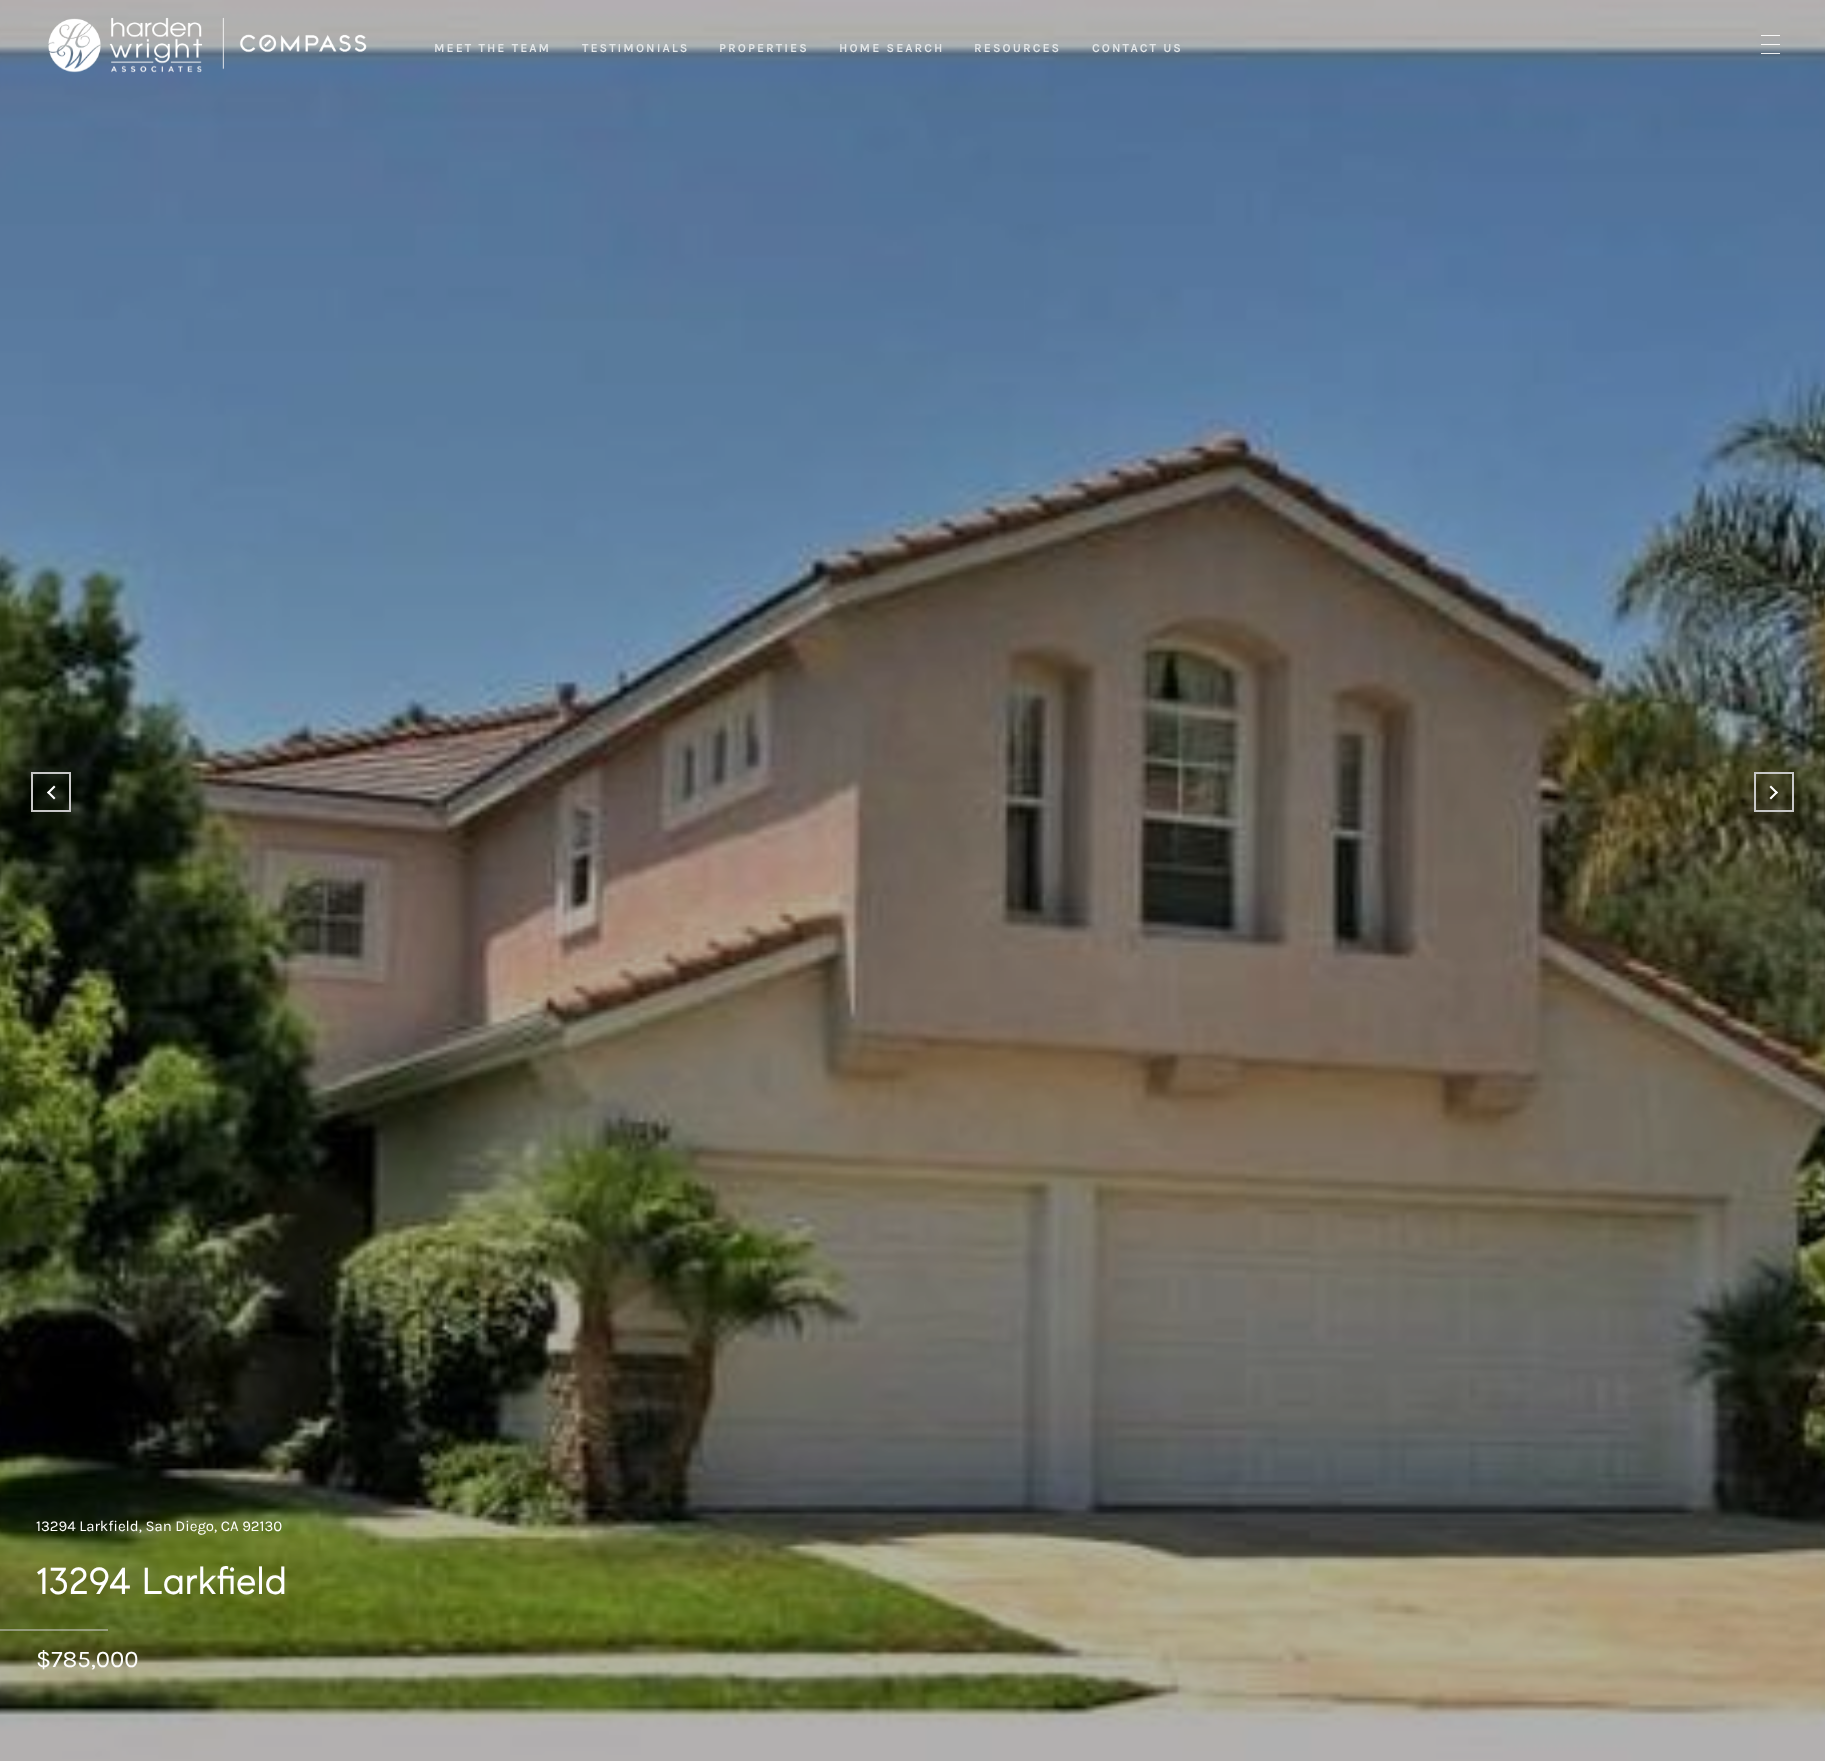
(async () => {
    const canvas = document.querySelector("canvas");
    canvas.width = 1825;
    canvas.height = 1761;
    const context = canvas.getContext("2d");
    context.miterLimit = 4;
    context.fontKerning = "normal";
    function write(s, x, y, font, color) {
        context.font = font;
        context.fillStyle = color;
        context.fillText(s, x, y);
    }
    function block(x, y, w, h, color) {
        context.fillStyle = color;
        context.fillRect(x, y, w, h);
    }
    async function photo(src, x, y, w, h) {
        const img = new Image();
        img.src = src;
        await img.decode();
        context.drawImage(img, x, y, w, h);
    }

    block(0, 0, 1825, 1761, "rgb(255, 255, 255)");
    await photo("media/2.png", 0, 0, 1825, 1761);
    await photo("media/1.png", 48, 17, 319, 56);
    context.letterSpacing = "2.4px";
    write("MEET THE TEAM", 434, 52, "bold 12px Karla", "rgb(228, 231, 233)");
    write("TESTIMONIALS", 582, 52, "bold 12px Karla", "rgb(228, 231, 233)");
    write("PROPERTIES", 719, 52, "bold 12px Karla", "rgb(228, 231, 233)");
    write("HOME SEARCH", 839, 52, "bold 12px Karla", "rgb(228, 231, 233)");
    write("RESOURCES", 974, 52, "bold 12px Karla", "rgb(228, 231, 233)");
    write("CONTACT US", 1092, 52, "bold 12px Karla", "rgb(228, 231, 233)");
    block(1761, 35, 19, 1, "rgb(247, 247, 247)");
    block(1761, 44, 19, 1, "rgb(247, 247, 247)");
    block(1761, 53, 19, 1, "rgb(238, 240, 242)");
    context.strokeStyle = "rgb(200, 200, 200)";
    context.lineWidth = 2;
    context.strokeRect(32, 773, 38, 38);
    context.fillStyle = "rgb(255, 255, 255)";
    context.beginPath();
    context.moveTo(55.5, 798);
    context.lineTo(54, 799.5);
    context.lineTo(47, 792.5);
    context.lineTo(48.5, 791);
    context.closePath();
    context.fill();
    context.beginPath();
    context.moveTo(55.5, 787);
    context.lineTo(48.5, 794);
    context.lineTo(47, 792.5);
    context.lineTo(54, 785.5);
    context.closePath();
    context.fill();
    context.strokeRect(1755, 773, 38, 38);
    context.beginPath();
    context.moveTo(1769.5, 787);
    context.lineTo(1771, 785.5);
    context.lineTo(1778, 792.5);
    context.lineTo(1776.5, 794);
    context.closePath();
    context.fill();
    context.beginPath();
    context.moveTo(1769.5, 798);
    context.lineTo(1776.5, 791);
    context.lineTo(1778, 792.5);
    context.lineTo(1771, 799.5);
    context.closePath();
    context.fill();
    context.letterSpacing = "0px";
    write("13294 Larkfield, San Diego, CA 92130", 36, 1531, "15px Karla", "rgb(255, 255, 255)");
    write("13294 Larkfield", 36, 1594, "37.5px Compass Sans", "rgb(255, 255, 255)");
    block(0, 1629, 108, 2, "rgba(200, 200, 200, 0.55)");
    write("$785,000", 36, 1667, "24px Karla", "rgb(255, 255, 255)");
})();
